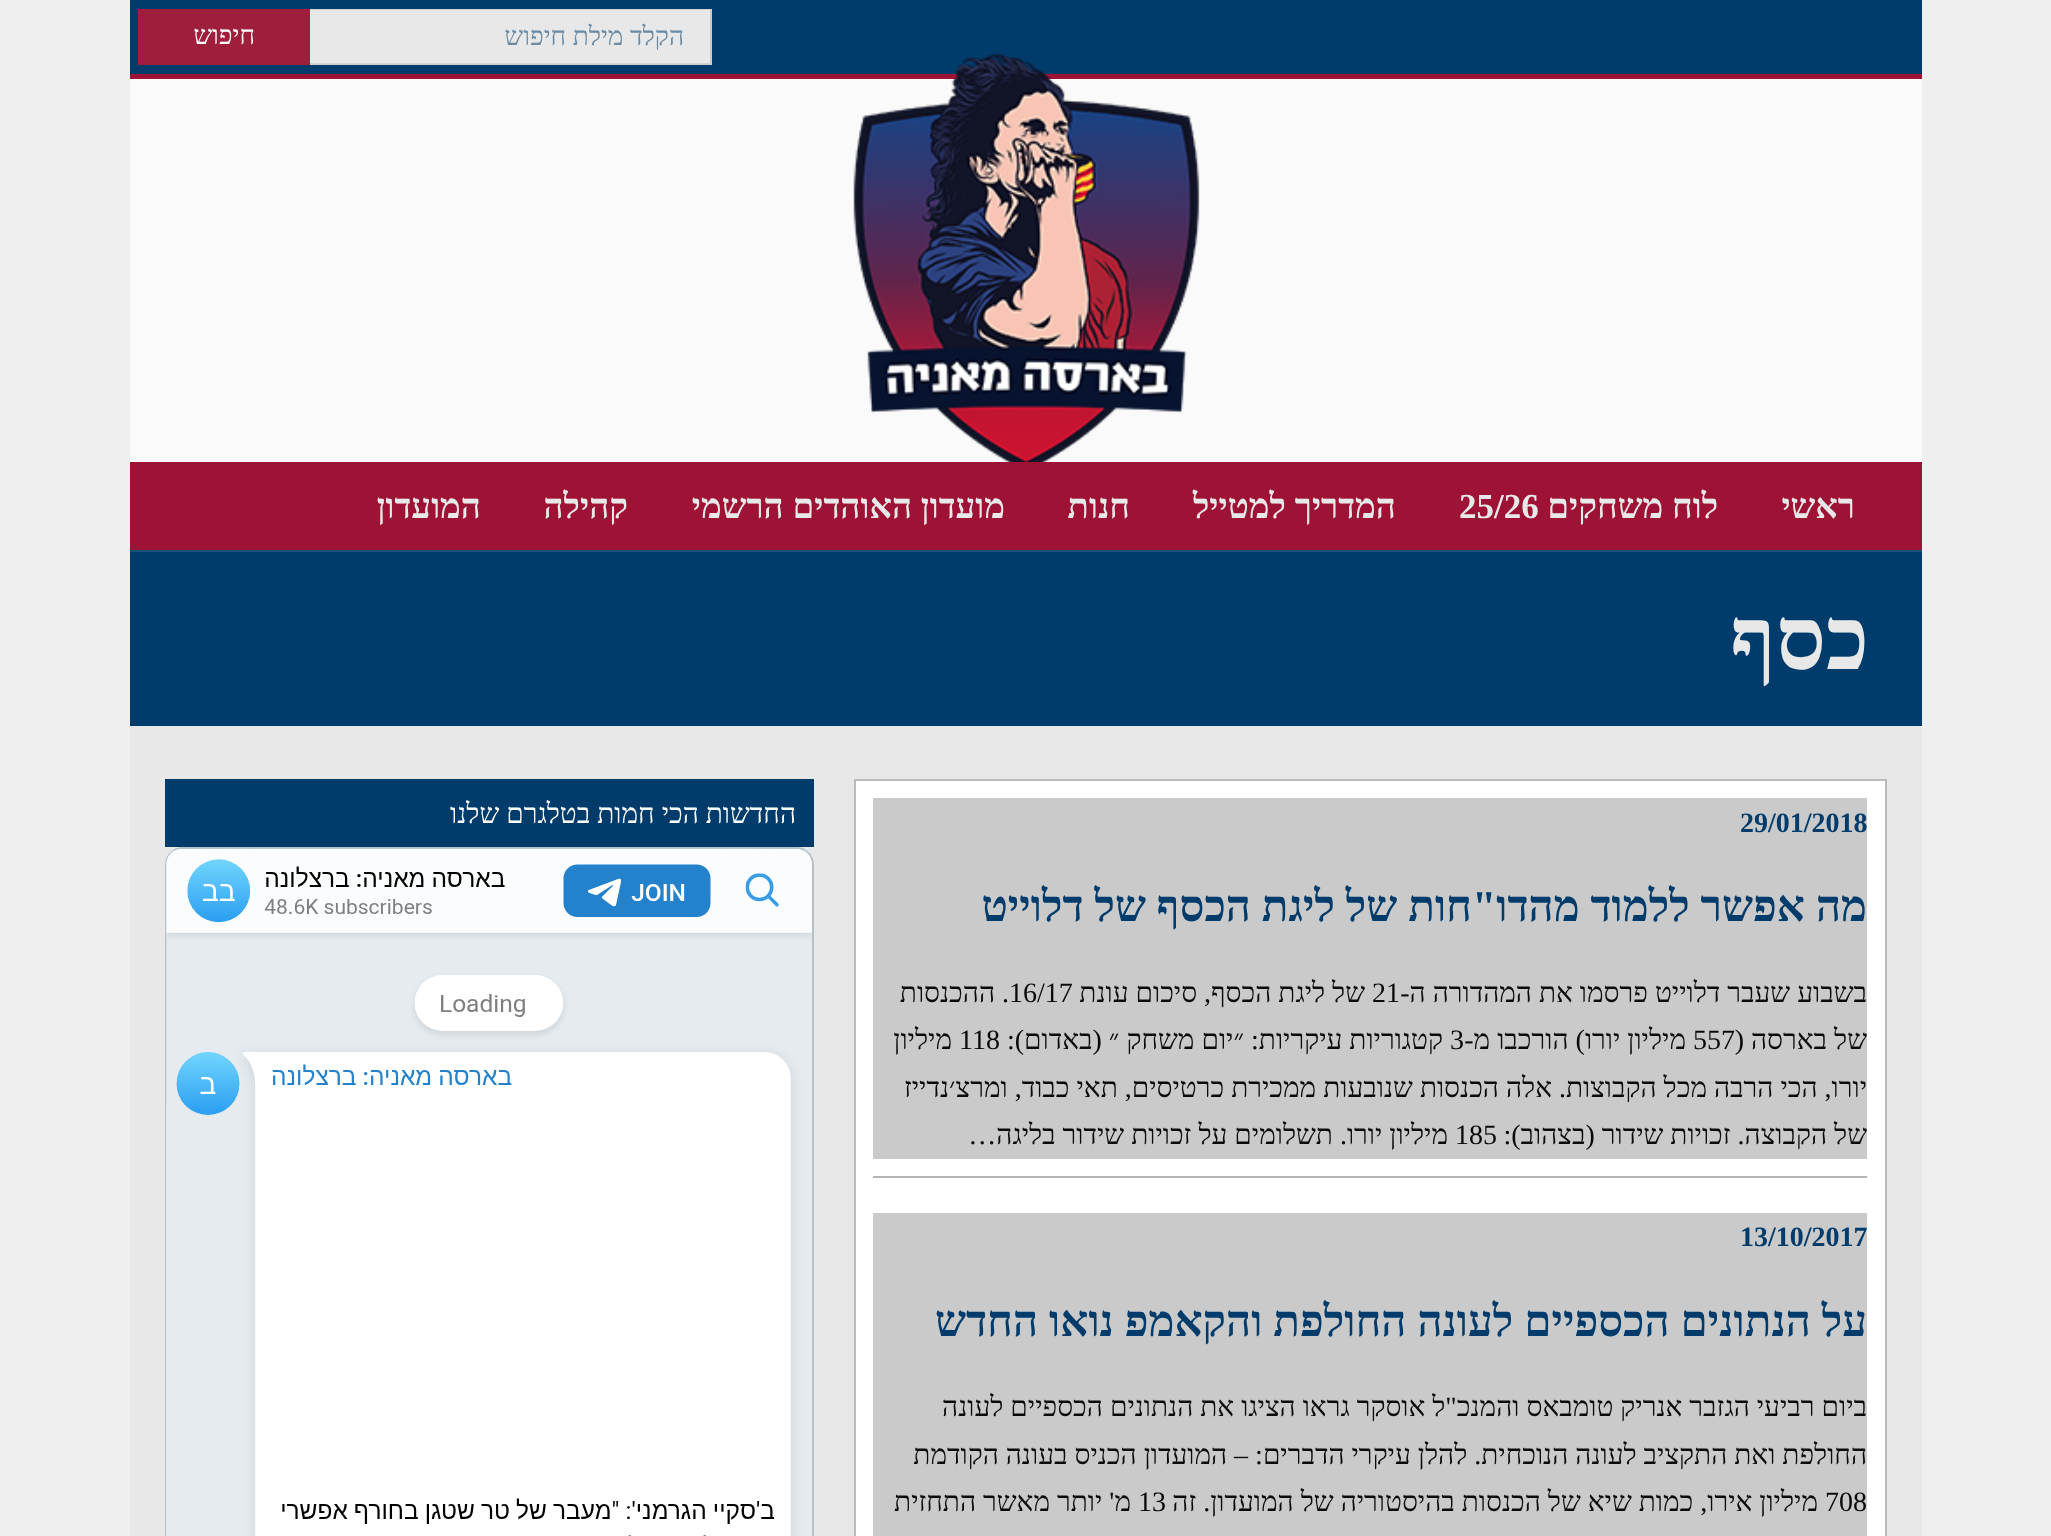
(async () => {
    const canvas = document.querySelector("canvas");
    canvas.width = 2051;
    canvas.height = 1536;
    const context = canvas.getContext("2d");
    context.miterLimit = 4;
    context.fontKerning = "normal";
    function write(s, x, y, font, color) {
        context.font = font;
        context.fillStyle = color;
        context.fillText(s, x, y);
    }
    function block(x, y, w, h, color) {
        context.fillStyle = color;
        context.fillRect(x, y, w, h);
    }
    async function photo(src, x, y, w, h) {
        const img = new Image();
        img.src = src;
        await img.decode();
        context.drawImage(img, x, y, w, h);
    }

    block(0, 0, 2051, 1536, "rgb(239, 239, 239)");
    block(130, 0, 1792, 74, "rgb(0, 60, 107)");
    block(130, 74, 1792, 5, "rgb(158, 19, 53)");
    block(310, 9, 402, 56, "rgb(232, 232, 232)");
    context.fillStyle = "rgb(209, 209, 209)";
    context.beginPath();
    context.moveTo(310, 9);
    context.lineTo(712, 9);
    context.lineTo(710, 10);
    context.lineTo(310, 10);
    context.closePath();
    context.fill();
    context.fillStyle = "rgb(202, 202, 202)";
    context.beginPath();
    context.moveTo(712, 9);
    context.lineTo(712, 65);
    context.lineTo(710, 63);
    context.lineTo(710, 10);
    context.closePath();
    context.fill();
    context.fillStyle = "rgba(0, 0, 0, 0.1)";
    context.beginPath();
    context.moveTo(712, 65);
    context.lineTo(310, 65);
    context.lineTo(310, 63);
    context.lineTo(710, 63);
    context.closePath();
    context.fill();
    context.direction = "rtl";
    write("הקלד מילת חיפוש", 684, 45, "26.25px Liberation Serif", "rgb(107, 139, 165)");
    block(138, 9, 172, 56, "rgb(158, 30, 60)");
    write("חיפוש", 255, 44, "26.25px Liberation Serif", "rgb(255, 255, 255)");
    block(130, 79, 1792, 383, "rgb(250, 250, 250)");
    await photo("media/1.png", 853, 54, 347, 408);
    block(130, 462, 1792, 88, "rgb(158, 19, 53)");
    write("ראשי", 1855, 518, "bold 35px Liberation Serif", "rgb(232, 232, 232)");
    write("לוח משחקים", 1718, 518, "bold 35px Liberation Serif", "rgb(232, 232, 232)");
    context.direction = "ltr";
    write("25/26", 1459, 518, "bold 35px Liberation Serif", "rgb(232, 232, 232)");
    context.direction = "rtl";
    write("המדריך למטייל", 1396, 518, "bold 35px Liberation Serif", "rgb(232, 232, 232)");
    write("חנות", 1130, 518, "bold 35px Liberation Serif", "rgb(232, 232, 232)");
    write("מועדון האוהדים הרשמי", 1005, 518, "bold 35px Liberation Serif", "rgb(232, 232, 232)");
    write("קהילה", 628, 518, "bold 35px Liberation Serif", "rgb(232, 232, 232)");
    write("המועדון", 481, 518, "bold 35px Liberation Serif", "rgb(232, 232, 232)");
    block(130, 552, 1792, 174, "rgb(0, 60, 107)");
    block(130, 550, 1792, 2, "rgb(26, 80, 122)");
    write("כסף", 1869, 669, "bold 88px Liberation Serif", "rgb(232, 232, 232)");
    block(130, 726, 1792, 810, "rgb(232, 232, 232)");
    context.fillStyle = "rgb(255, 255, 255)";
    context.beginPath();
    context.rect(855, 780, 1031, 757);
    context.fill();
    context.strokeStyle = "rgb(187, 187, 187)";
    context.lineWidth = 2;
    context.stroke();
    block(873, 1176, 994, 2, "rgb(180, 180, 180)");
    block(873, 798, 994, 361, "rgb(202, 202, 202)");
    context.direction = "ltr";
    write("29/01/2018", 1740, 832, "bold 28px Liberation Serif", "rgb(0, 60, 107)");
    context.direction = "rtl";
    write("מה אפשר ללמוד מהדו\"חות של ליגת הכסף של דלוייט", 1867, 921, "bold 43.75px Liberation Serif", "rgb(0, 60, 107)");
    write("בשבוע שעבר דלוייט פרסמו את המהדורה ה-", 1867, 1002, "28px Liberation Serif", "rgb(10, 10, 10)");
    context.direction = "ltr";
    write("21", 1372, 1002, "28px Liberation Serif", "rgb(10, 10, 10)");
    context.direction = "rtl";
    write("של ליגת הכסף, סיכום עונת", 1365, 1002, "28px Liberation Serif", "rgb(10, 10, 10)");
    context.direction = "ltr";
    write("16/17", 1009, 1002, "28px Liberation Serif", "rgb(10, 10, 10)");
    context.direction = "rtl";
    write(". ההכנסות", 1009, 1002, "28px Liberation Serif", "rgb(10, 10, 10)");
    write("של בארסה (", 1867, 1049, "28px Liberation Serif", "rgb(10, 10, 10)");
    context.direction = "ltr";
    write("557", 1693, 1049, "28px Liberation Serif", "rgb(10, 10, 10)");
    context.direction = "rtl";
    write("מיליון יורו) הורכבו מ-", 1686, 1049, "28px Liberation Serif", "rgb(10, 10, 10)");
    context.direction = "ltr";
    write("3", 1450, 1049, "28px Liberation Serif", "rgb(10, 10, 10)");
    context.direction = "rtl";
    write("קטגוריות עיקריות: ״יום משחק ״ (באדום):", 1443, 1049, "28px Liberation Serif", "rgb(10, 10, 10)");
    context.direction = "ltr";
    write("118", 959, 1049, "28px Liberation Serif", "rgb(10, 10, 10)");
    context.direction = "rtl";
    write("מיליון", 952, 1049, "28px Liberation Serif", "rgb(10, 10, 10)");
    write("יורו, הכי הרבה מכל הקבוצות. אלה הכנסות שנובעות ממכירת כרטיסים, תאי כבוד, ומרצ׳נדייז", 1867, 1097, "28px Liberation Serif", "rgb(10, 10, 10)");
    write("של הקבוצה. זכויות שידור (בצהוב):", 1867, 1144, "28px Liberation Serif", "rgb(10, 10, 10)");
    context.direction = "ltr";
    write("185", 1455, 1144, "28px Liberation Serif", "rgb(10, 10, 10)");
    context.direction = "rtl";
    write("מיליון יורו. תשלומים על זכויות שידור בליגה…", 1448, 1144, "28px Liberation Serif", "rgb(10, 10, 10)");
    block(873, 1213, 994, 323, "rgb(202, 202, 202)");
    context.direction = "ltr";
    write("13/10/2017", 1740, 1246, "bold 28px Liberation Serif", "rgb(0, 60, 107)");
    context.direction = "rtl";
    write("על הנתונים הכספיים לעונה החולפת והקאמפ נואו החדש", 1867, 1336, "bold 43.75px Liberation Serif", "rgb(0, 60, 107)");
    write("ביום רביעי הגזבר אנריק טומבאס והמנכ\"ל אוסקר גראו הציגו את הנתונים הכספיים לעונה", 1867, 1416, "28px Liberation Serif", "rgb(10, 10, 10)");
    write("החולפת ואת התקציב לעונה הנוכחית. להלן עיקרי הדברים: – המועדון הכניס בעונה הקודמת", 1867, 1464, "28px Liberation Serif", "rgb(10, 10, 10)");
    context.direction = "ltr";
    write("708", 1825, 1511, "28px Liberation Serif", "rgb(10, 10, 10)");
    context.direction = "rtl";
    write("מיליון אירו, כמות שיא של הכנסות בהיסטוריה של המועדון. זה", 1818, 1511, "28px Liberation Serif", "rgb(10, 10, 10)");
    context.direction = "ltr";
    write("13", 1138, 1511, "28px Liberation Serif", "rgb(10, 10, 10)");
    context.direction = "rtl";
    write("מ' יותר מאשר התחזית", 1131, 1511, "28px Liberation Serif", "rgb(10, 10, 10)");
    block(165, 779, 649, 68, "rgb(0, 60, 107)");
    write("החדשות הכי חמות בטלגרם שלנו", 796, 823, "28px Liberation Serif", "rgb(255, 255, 255)");
    context.beginPath();
    context.roundRect(166, 848, 647, 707, 17);
    context.strokeStyle = "rgb(181, 192, 200)";
    context.stroke();
    await photo("media/2.png", 166, 848, 646, 688);
})();
